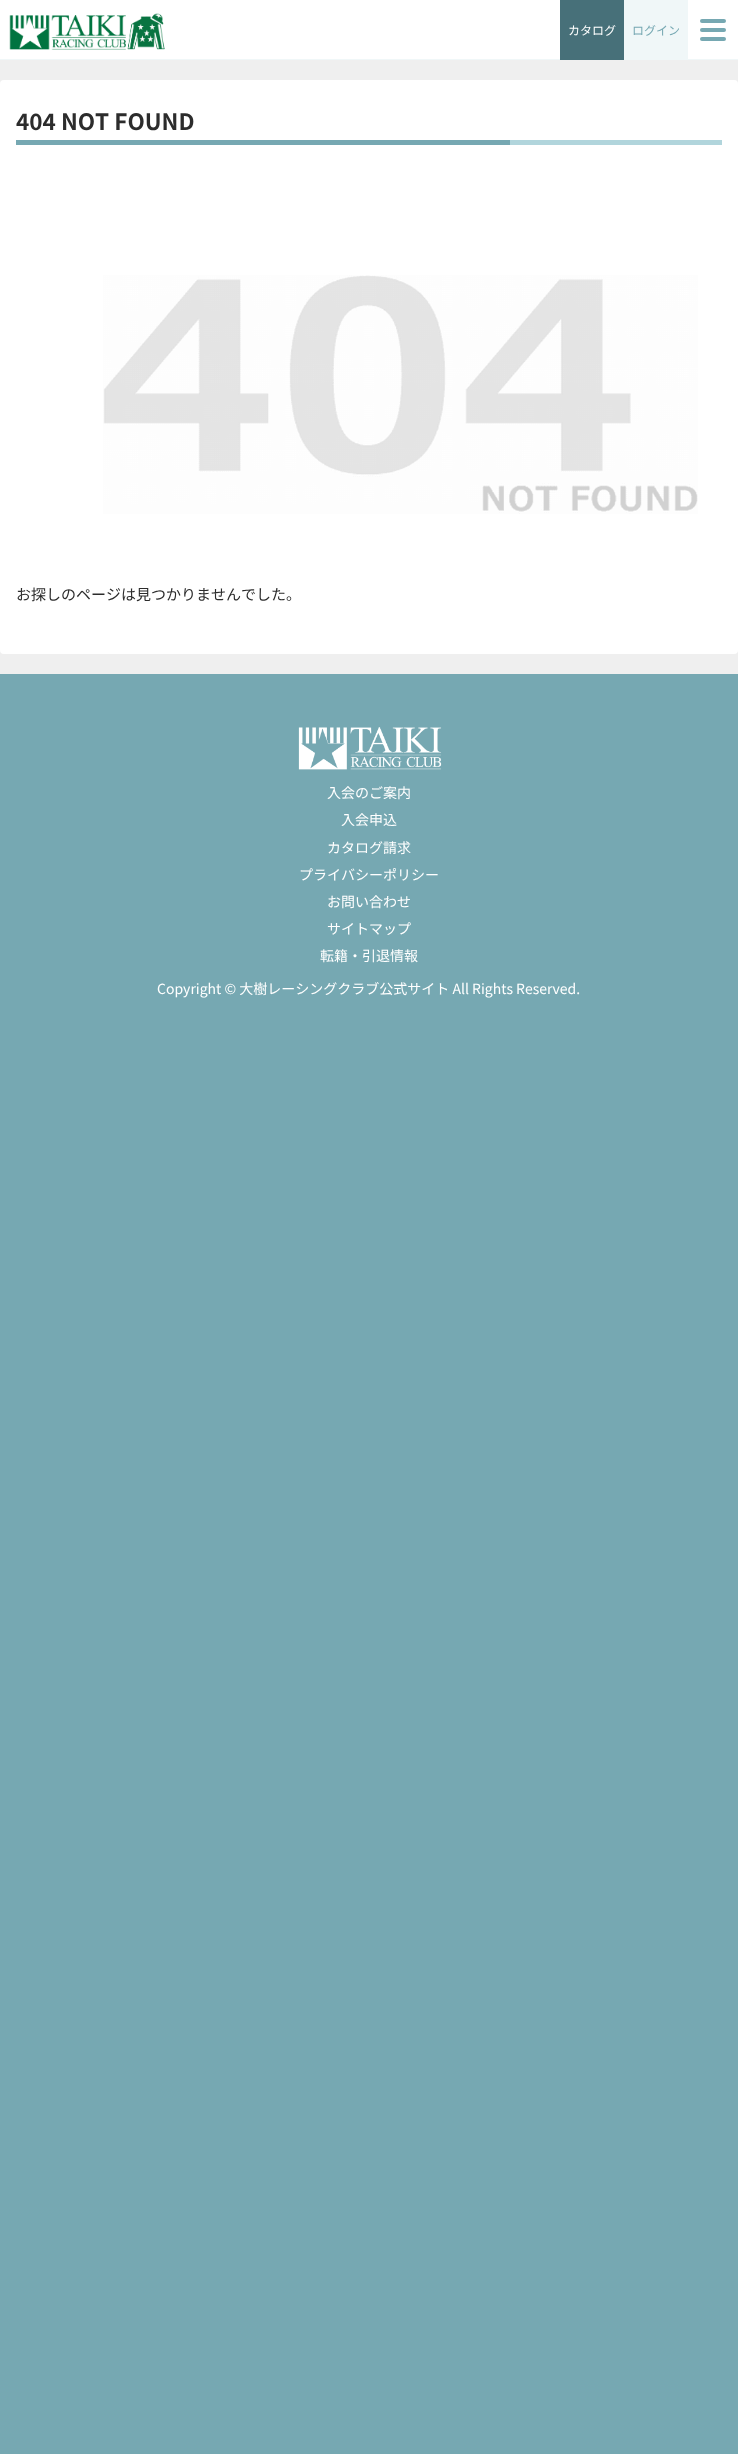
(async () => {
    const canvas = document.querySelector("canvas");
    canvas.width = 738;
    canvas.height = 2454;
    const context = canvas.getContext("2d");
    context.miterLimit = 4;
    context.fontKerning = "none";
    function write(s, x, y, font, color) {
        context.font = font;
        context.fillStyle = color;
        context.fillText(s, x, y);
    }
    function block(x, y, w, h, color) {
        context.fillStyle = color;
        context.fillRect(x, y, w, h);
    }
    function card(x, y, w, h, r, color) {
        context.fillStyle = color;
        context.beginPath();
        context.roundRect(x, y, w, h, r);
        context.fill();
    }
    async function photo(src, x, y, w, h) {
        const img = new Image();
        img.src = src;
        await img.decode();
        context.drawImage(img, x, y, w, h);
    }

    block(0, 0, 738, 2454, "rgb(118, 168, 178)");
    block(0, 0, 738, 59, "rgb(255, 255, 255)");
    block(0, 59, 738, 1, "rgb(240, 247, 248)");
    await photo("media/1.png", 9, 13, 156, 37);
    block(560, 0, 64, 60, "rgb(71, 112, 121)");
    write("カタログ", 568, 35, "12px Noto Sans JP", "rgb(255, 255, 255)");
    block(624, 0, 64, 59, "rgb(240, 247, 248)");
    write("ログイン", 632, 35, "12px Noto Sans JP", "rgb(118, 168, 178)");
    card(700, 19, 26, 4, 2, "rgb(118, 168, 178)");
    card(700, 28, 26, 4, 2, "rgb(118, 168, 178)");
    card(700, 37, 26, 4, 2, "rgb(118, 168, 178)");
    block(0, 60, 738, 614, "rgb(239, 239, 239)");
    card(0, 80, 738, 574, 4, "rgb(255, 255, 255)");
    block(510, 140, 212, 5, "rgb(177, 213, 220)");
    write("404 NOT FOUND", 16, 130, "bold 22.5px Noto Sans JP", "rgb(44, 44, 44)");
    block(16, 140, 494, 5, "rgb(118, 168, 178)");
    await photo("media/2.png", 103, 275, 595, 239);
    write("お探しのページは見つかりませんでした。", 16, 600, "15px Noto Sans JP", "rgb(44, 44, 44)");
    await photo("media/3.png", 298, 727, 144, 43);
    write("入会のご案内", 327, 798, "14px Noto Sans JP", "rgb(255, 255, 255)");
    write("入会申込", 341, 825, "14px Noto Sans JP", "rgb(255, 255, 255)");
    write("カタログ請求", 327, 853, "14px Noto Sans JP", "rgb(255, 255, 255)");
    write("プライバシーポリシー", 299, 880, "14px Noto Sans JP", "rgb(255, 255, 255)");
    write("お問い合わせ", 327, 907, "14px Noto Sans JP", "rgb(255, 255, 255)");
    write("サイトマップ", 327, 934, "14px Noto Sans JP", "rgb(255, 255, 255)");
    write("転籍・引退情報", 320, 961, "14px Noto Sans JP", "rgb(255, 255, 255)");
    write("Copyright © 大樹レーシングクラブ公式サイト All Rights Reserved.", 157, 994, "14px Noto Sans JP", "rgb(255, 255, 255)");
})();
